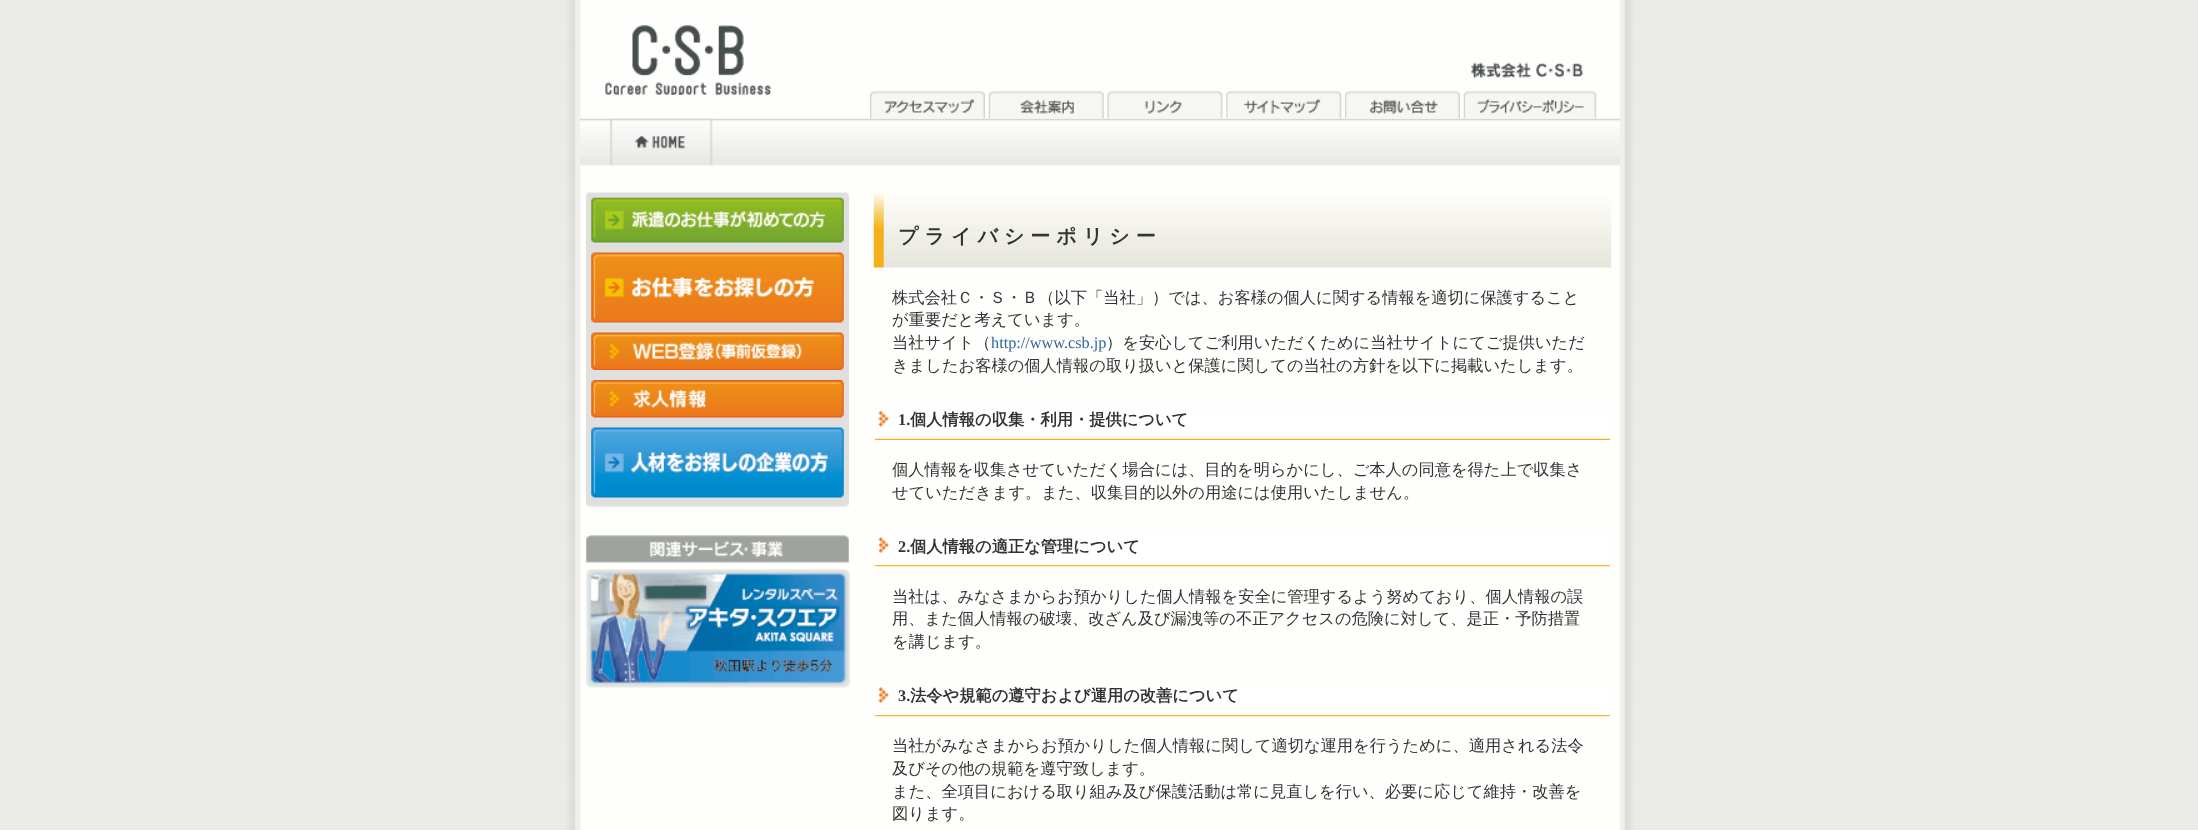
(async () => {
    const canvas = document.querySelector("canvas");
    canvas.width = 2198;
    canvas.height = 830;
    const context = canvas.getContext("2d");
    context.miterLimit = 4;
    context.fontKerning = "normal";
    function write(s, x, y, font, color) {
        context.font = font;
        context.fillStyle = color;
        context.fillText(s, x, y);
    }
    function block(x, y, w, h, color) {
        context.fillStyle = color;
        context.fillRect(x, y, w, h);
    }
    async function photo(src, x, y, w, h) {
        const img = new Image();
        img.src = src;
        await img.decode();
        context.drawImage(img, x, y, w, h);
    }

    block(0, 0, 2198, 830, "rgb(255, 255, 255)");
    await photo("media/1.png", 0, 0, 2198, 830);
    await photo("media/2.png", 567, 0, 1066, 830);
    await photo("media/3.png", 605, 25, 167, 70);
    await photo("media/4.png", 1471, 62, 112, 16);
    await photo("media/11.png", 580, 118, 1040, 48);
    await photo("media/5.png", 870, 91, 115, 28);
    await photo("media/6.png", 988, 91, 116, 28);
    await photo("media/7.png", 1107, 91, 116, 28);
    await photo("media/8.png", 1226, 91, 116, 28);
    await photo("media/9.png", 1345, 91, 115, 28);
    await photo("media/10.png", 1463, 91, 134, 28);
    await photo("media/12.png", 610, 118, 103, 48);
    await photo("media/13.png", 586, 503, 263, 5);
    await photo("media/14.png", 586, 192, 263, 5);
    block(586, 197, 263, 306, "rgb(223, 224, 221)");
    await photo("media/15.png", 591, 197, 253, 46);
    await photo("media/16.png", 591, 252, 253, 71);
    await photo("media/17.png", 591, 332, 253, 38);
    await photo("media/18.png", 591, 380, 253, 38);
    await photo("media/19.png", 591, 427, 253, 71);
    await photo("media/20.png", 586, 535, 263, 28);
    await photo("media/21.png", 586, 569, 264, 119);
    await photo("media/22.png", 873, 193, 739, 75);
    context.letterSpacing = "6px";
    write("プライバシーポリシー", 898, 243, "bold 20px WenQuanYi Zen Hei", "rgb(51, 51, 51)");
    context.letterSpacing = "0px";
    write("株式会社Ｃ・Ｓ・Ｂ（以下「当社」）では、お客様の個人に関する情報を適切に保護すること", 892, 303, "500 16.25px WenQuanYi Zen Hei", "rgb(51, 51, 51)");
    write("が重要だと考えています。", 892, 325, "500 16.25px WenQuanYi Zen Hei", "rgb(51, 51, 51)");
    write("当社サイト（", 892, 348, "500 16.25px WenQuanYi Zen Hei", "rgb(51, 51, 51)");
    write("http://www.csb.jp", 991, 348, "16.25px Liberation Serif", "rgb(51, 102, 153)");
    write("）を安心してご利用いただくために当社サイトにてご提供いただ", 1106, 348, "500 16.25px WenQuanYi Zen Hei", "rgb(51, 51, 51)");
    write("きましたお客様の個人情報の取り扱いと保護に関しての当社の方針を以下に掲載いたします。", 892, 371, "500 16.25px WenQuanYi Zen Hei", "rgb(51, 51, 51)");
    await photo("media/23.png", 874, 411, 737, 29);
    write("1.", 898, 425, "bold 16.25px Liberation Serif", "rgb(51, 51, 51)");
    write("個人情報の収集・利用・提供について", 910, 425, "bold 16.25px WenQuanYi Zen Hei", "rgb(51, 51, 51)");
    write("個人情報を収集させていただく場合には、目的を明らかにし、ご本人の同意を得た上で収集さ", 892, 475, "500 16.25px WenQuanYi Zen Hei", "rgb(51, 51, 51)");
    write("せていただきます。また、収集目的以外の用途には使用いたしません。", 892, 498, "500 16.25px WenQuanYi Zen Hei", "rgb(51, 51, 51)");
    await photo("media/24.png", 874, 537, 737, 30);
    write("2.", 898, 552, "bold 16.25px Liberation Serif", "rgb(51, 51, 51)");
    write("個人情報の適正な管理について", 910, 552, "bold 16.25px WenQuanYi Zen Hei", "rgb(51, 51, 51)");
    write("当社は、みなさまからお預かりした個人情報を安全に管理するよう努めており、個人情報の誤", 892, 602, "500 16.25px WenQuanYi Zen Hei", "rgb(51, 51, 51)");
    write("用、また個人情報の破壊、改ざん及び漏洩等の不正アクセスの危険に対して、是正・予防措置", 892, 624, "500 16.25px WenQuanYi Zen Hei", "rgb(51, 51, 51)");
    write("を講じます。", 892, 647, "500 16.25px WenQuanYi Zen Hei", "rgb(51, 51, 51)");
    await photo("media/24.png", 874, 687, 737, 30);
    write("3.", 898, 701, "bold 16.25px Liberation Serif", "rgb(51, 51, 51)");
    write("法令や規範の遵守および運用の改善について", 910, 701, "bold 16.25px WenQuanYi Zen Hei", "rgb(51, 51, 51)");
    write("当社がみなさまからお預かりした個人情報に関して適切な運用を行うために、適用される法令", 892, 751, "500 16.25px WenQuanYi Zen Hei", "rgb(51, 51, 51)");
    write("及びその他の規範を遵守致します。", 892, 774, "500 16.25px WenQuanYi Zen Hei", "rgb(51, 51, 51)");
    write("また、全項目における取り組み及び保護活動は常に見直しを行い、必要に応じて維持・改善を", 892, 797, "500 16.25px WenQuanYi Zen Hei", "rgb(51, 51, 51)");
    write("図ります。", 892, 819, "500 16.25px WenQuanYi Zen Hei", "rgb(51, 51, 51)");
})();
